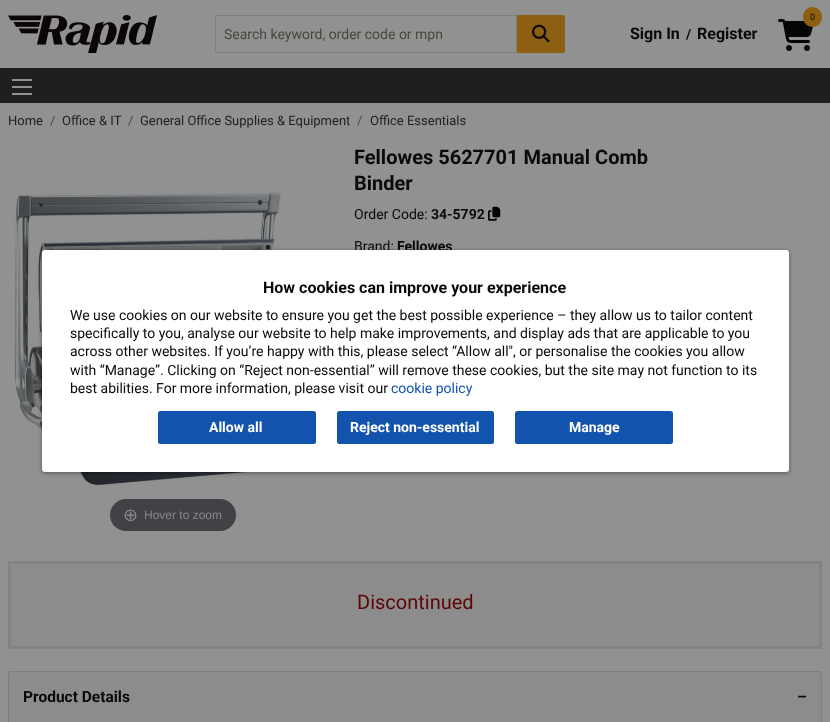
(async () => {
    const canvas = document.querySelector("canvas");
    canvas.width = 830;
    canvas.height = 722;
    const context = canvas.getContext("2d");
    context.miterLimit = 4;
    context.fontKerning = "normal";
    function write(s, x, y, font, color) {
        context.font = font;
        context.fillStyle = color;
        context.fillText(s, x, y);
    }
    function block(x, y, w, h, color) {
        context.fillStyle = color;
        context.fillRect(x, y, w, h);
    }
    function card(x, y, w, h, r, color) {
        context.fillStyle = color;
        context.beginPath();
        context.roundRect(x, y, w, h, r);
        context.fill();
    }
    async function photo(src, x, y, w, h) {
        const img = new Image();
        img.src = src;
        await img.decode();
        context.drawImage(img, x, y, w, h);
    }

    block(0, 0, 830, 722, "rgb(145, 145, 145)");
    await photo("media/1.png", 8, 15, 149, 38);
    context.beginPath();
    context.roundRect(215.5, 15.5, 301, 37, [2, 0, 0, 2]);
    context.strokeStyle = "rgb(126, 126, 126)";
    context.stroke();
    write("Search keyword, order code or mpn", 224, 39, "14px Roboto", "rgb(71, 71, 63)");
    context.fillStyle = "rgb(141, 95, 18)";
    context.beginPath();
    context.roundRect(517, 15, 48, 38, [0, 2.5, 2.5, 0]);
    context.fill();
    await photo("media/2.png", 532, 24, 18, 19);
    await photo("media/3.png", 778, 19, 35, 32);
    card(803, 7, 19, 20, 9.5, "rgb(141, 95, 18)");
    write("0", 810, 20, "9px Roboto", "rgb(10, 10, 10)");
    write("Sign In", 630, 39, "bold 16px Roboto", "rgb(10, 10, 10)");
    write("/", 686, 39, "bold 14px Roboto", "rgb(10, 10, 10)");
    write("Register", 697, 39, "bold 16px Roboto", "rgb(10, 10, 10)");
    block(0, 68, 830, 35, "rgb(31, 31, 31)");
    block(12, 93, 20, 2, "rgb(144, 144, 144)");
    block(12, 86, 20, 2, "rgb(144, 144, 144)");
    block(12, 79, 20, 2, "rgb(144, 144, 144)");
    write("Home", 8, 125, "13px Roboto", "rgb(31, 31, 31)");
    write("/", 50, 125, "13px Roboto", "rgb(71, 71, 63)");
    write("Office & IT", 62, 125, "13px Roboto", "rgb(31, 31, 31)");
    write("/", 128, 125, "13px Roboto", "rgb(71, 71, 63)");
    write("General Office Supplies & Equipment", 140, 125, "13px Roboto", "rgb(31, 31, 31)");
    write("/", 357, 125, "13px Roboto", "rgb(71, 71, 63)");
    write("Office Essentials", 370, 125, "13px Roboto", "rgb(31, 31, 31)");
    write("Fellowes 5627701 Manual Comb", 354, 164, "bold 20px Roboto", "rgb(10, 10, 10)");
    write("Binder", 354, 190, "bold 20px Roboto", "rgb(10, 10, 10)");
    write("Order Code:", 354, 219, "14px Roboto", "rgb(10, 10, 10)");
    write("34-5792", 431, 219, "bold 14px Roboto", "rgb(10, 10, 10)");
    await photo("media/4.png", 488, 206, 13, 15);
    write("Brand:", 354, 251, "14px Roboto", "rgb(10, 10, 10)");
    write("Fellowes", 397, 251, "bold 14px Roboto", "rgb(10, 10, 10)");
    await photo("media/5.png", 14, 192, 318, 294);
    card(110, 499, 126, 32, 16, "rgb(66, 66, 70)");
    write("⊕", 123, 521, "18px DejaVu Sans", "rgb(135, 135, 135)");
    write("Hover to zoom", 144, 519, "12px Liberation Sans", "rgb(135, 135, 135)");
    context.fillStyle = "rgb(140, 140, 140)";
    context.beginPath();
    context.rect(9.5, 562.5, 811, 85);
    context.fill();
    context.strokeStyle = "rgb(132, 130, 130)";
    context.lineWidth = 3;
    context.stroke();
    write("Discontinued", 357, 609, "20px Roboto", "rgb(94, 5, 5)");
    block(8, 671, 814, 51, "rgb(140, 140, 140)");
    context.fillStyle = "rgb(126, 126, 126)";
    context.beginPath();
    context.moveTo(11, 671);
    context.lineTo(819, 671);
    context.bezierCurveTo(821, 671, 822, 672, 822, 674);
    context.lineTo(822, 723);
    context.lineTo(8, 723);
    context.lineTo(8, 674);
    context.bezierCurveTo(8, 672, 9, 671, 11, 671);
    context.closePath();
    context.moveTo(11, 672);
    context.lineTo(819, 672);
    context.bezierCurveTo(820, 672, 821, 673, 821, 674);
    context.lineTo(821, 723);
    context.lineTo(9, 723);
    context.lineTo(9, 673);
    context.closePath();
    context.fill("evenodd");
    write("Product Details", 23, 702, "bold 15.5px Roboto", "rgb(10, 10, 10)");
    write("–", 797, 702, "bold 15.5px Roboto", "rgb(10, 10, 10)");
    context.fillStyle = "rgba(0, 0, 0, 0.4)";
    context.filter = "blur(2px)";
    context.beginPath();
    context.roundRect(42, 251, 747, 222, 3);
    context.fill();
    context.filter = "none";
    card(42, 250, 747, 222, 3, "rgb(255, 255, 255)");
    write("How cookies can improve your experience", 263, 293, "bold 16px Roboto", "rgb(10, 10, 10)");
    write("We use cookies on our website to ensure you get the best possible experience – they allow us to tailor content", 70, 320, "14px Roboto", "rgb(10, 10, 10)");
    write("specifically to you, analyse our website to help make improvements, and display ads that are applicable to you", 70, 338, "14px Roboto", "rgb(10, 10, 10)");
    write("across other websites. If you’re happy with this, please select “Allow all\", or personalise the cookies you allow", 70, 356, "14px Roboto", "rgb(10, 10, 10)");
    write("with “Manage”. Clicking on “Reject non-essential” will remove these cookies, but the site may not function to its", 70, 375, "14px Roboto", "rgb(10, 10, 10)");
    write("best abilities. For more information, please visit our", 70, 393, "14px Roboto", "rgb(10, 10, 10)");
    write("cookie policy", 391, 393, "14px Roboto", "rgb(17, 83, 173)");
    card(158, 411, 158, 33, 2.5, "rgb(17, 83, 173)");
    write("Allow all", 209, 432, "bold 14px Roboto", "rgb(254, 254, 254)");
    card(337, 411, 157, 33, 2.5, "rgb(17, 83, 173)");
    write("Reject non-essential", 350, 432, "bold 14px Roboto", "rgb(254, 254, 254)");
    card(515, 411, 158, 33, 2.5, "rgb(17, 83, 173)");
    write("Manage", 569, 432, "bold 14px Roboto", "rgb(254, 254, 254)");
})();
